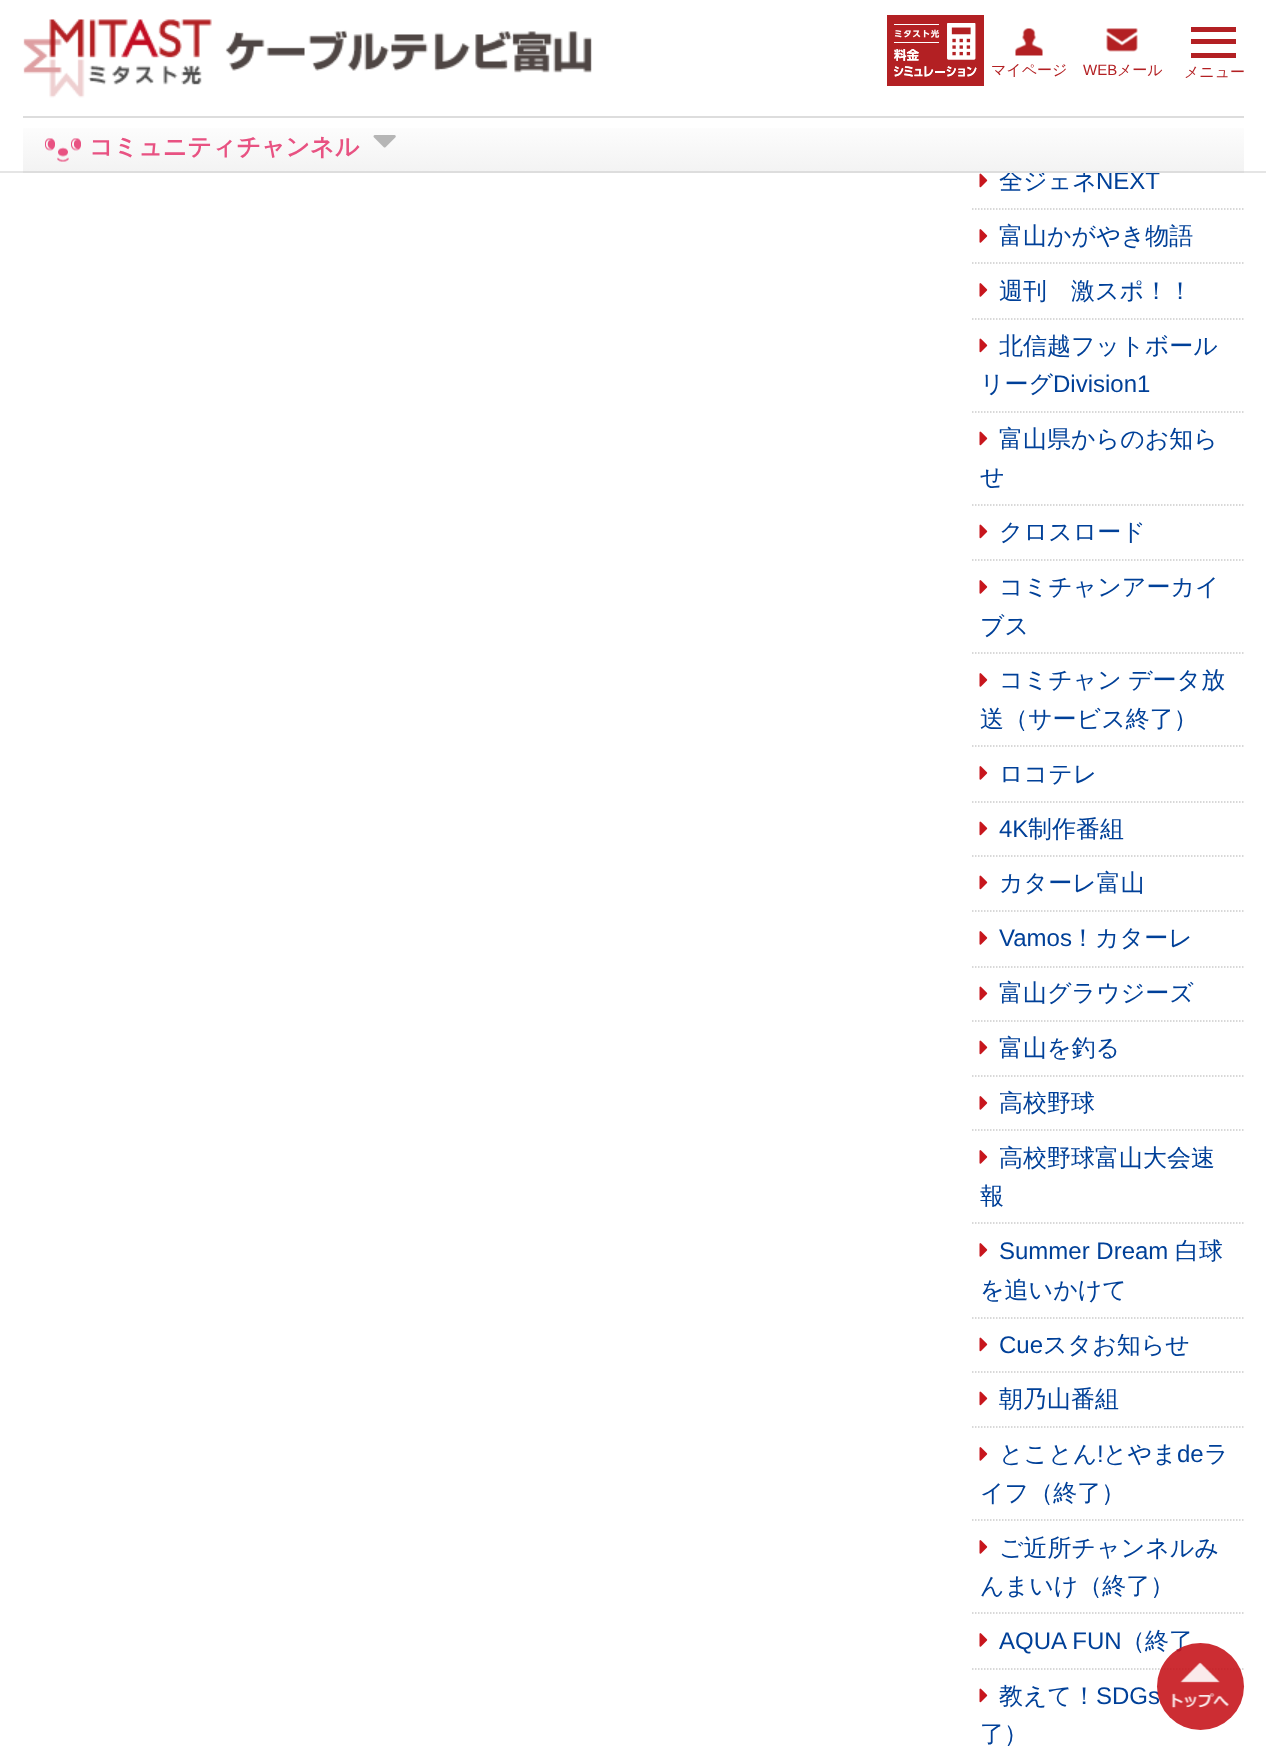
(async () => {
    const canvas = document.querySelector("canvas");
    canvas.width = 1266;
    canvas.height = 1752;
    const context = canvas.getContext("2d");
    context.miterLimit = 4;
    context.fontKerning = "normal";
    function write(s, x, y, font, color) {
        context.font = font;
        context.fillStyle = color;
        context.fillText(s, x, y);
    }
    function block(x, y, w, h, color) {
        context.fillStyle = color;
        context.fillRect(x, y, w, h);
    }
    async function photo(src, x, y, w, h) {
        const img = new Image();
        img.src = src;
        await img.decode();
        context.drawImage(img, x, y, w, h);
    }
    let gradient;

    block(0, 0, 1266, 1752, "rgb(255, 255, 255)");
    write("全ジェネ", 999, 189, "500 24px WenQuanYi Zen Hei", "rgb(0, 64, 152)");
    block(1008, 169, 4, 2, "rgb(255, 255, 255)");
    write("NEXT", 1096, 189, "24px Liberation Sans", "rgb(0, 64, 152)");
    block(0, 171, 1266, 2, "rgb(229, 229, 229)");
    await photo("media/1.png", 23, 19, 569, 79);
    block(887, 15, 97, 71, "rgb(179, 32, 35)");
    await photo("media/2.png", 894, 23, 83, 54);
    await photo("media/3.png", 1015, 28, 28, 28);
    write("マイページ", 991, 75, "500 15px WenQuanYi Zen Hei", "rgb(179, 32, 35)");
    await photo("media/4.png", 1106, 28, 32, 24);
    write("WEB", 1083, 75, "15px Liberation Sans", "rgb(179, 32, 35)");
    write("メール", 1117, 75, "500 15px WenQuanYi Zen Hei", "rgb(179, 32, 35)");
    block(1191, 27, 45, 5, "rgb(179, 32, 35)");
    block(1191, 39, 45, 5, "rgb(179, 32, 35)");
    block(1191, 53, 45, 5, "rgb(179, 32, 35)");
    write("メニュー", 1184, 77, "500 15px WenQuanYi Zen Hei", "rgb(179, 32, 35)");
    gradient = context.createLinearGradient(633, 117, 633, 171);
    gradient.addColorStop(0, "rgb(255, 255, 255)");
    gradient.addColorStop(1, "rgb(243, 243, 243)");
    context.fillStyle = gradient;
    context.fillRect(23, 128, 1221, 43);
    block(23, 116, 1221, 2, "rgb(221, 221, 221)");
    block(23, 171, 1221, 2, "rgb(221, 221, 221)");
    await photo("media/5.png", 45, 138, 36, 24);
    write("コミュニティチャンネル", 89, 155, "bold 24px WenQuanYi Zen Hei", "rgb(232, 82, 130)");
    await photo("media/6.png", 373, 135, 23, 13);
    context.beginPath();
    context.moveTo(972, 209);
    context.lineTo(1243.5, 209);
    context.strokeStyle = "rgb(204, 204, 204)";
    context.lineWidth = 1.5;
    context.setLineDash([1.5, 1.5]);
    context.stroke();
    await photo("media/7.png", 979, 173, 9, 15);
    context.beginPath();
    context.moveTo(972, 263);
    context.lineTo(1243.5, 263);
    context.stroke();
    await photo("media/8.png", 979, 229, 9, 14);
    write("富山かがやき物語", 999, 244, "500 24px WenQuanYi Zen Hei", "rgb(0, 64, 152)");
    context.beginPath();
    context.moveTo(972, 319);
    context.lineTo(1243.5, 319);
    context.stroke();
    await photo("media/8.png", 979, 283, 9, 14);
    write("週刊　激スポ！！", 999, 299, "500 24px WenQuanYi Zen Hei", "rgb(0, 64, 152)");
    context.beginPath();
    context.moveTo(972, 412);
    context.lineTo(1243.5, 412);
    context.stroke();
    await photo("media/7.png", 979, 338, 9, 15);
    write("北信越フットボール", 999, 354, "500 24px WenQuanYi Zen Hei", "rgb(0, 64, 152)");
    write("リーグ", 980, 392, "500 24px WenQuanYi Zen Hei", "rgb(0, 64, 152)");
    write("Division1", 1053, 392, "24px Liberation Sans", "rgb(0, 64, 152)");
    context.beginPath();
    context.moveTo(972, 505);
    context.lineTo(1243.5, 505);
    context.stroke();
    await photo("media/7.png", 979, 431, 9, 15);
    write("富山県からのお知ら", 999, 447, "500 24px WenQuanYi Zen Hei", "rgb(0, 64, 152)");
    write("せ", 980, 485, "500 24px WenQuanYi Zen Hei", "rgb(0, 64, 152)");
    context.beginPath();
    context.moveTo(972, 560);
    context.lineTo(1243.5, 560);
    context.stroke();
    await photo("media/7.png", 979, 524, 9, 15);
    write("クロスロード", 999, 540, "500 24px WenQuanYi Zen Hei", "rgb(0, 64, 152)");
    context.beginPath();
    context.moveTo(972, 653);
    context.lineTo(1243.5, 653);
    context.stroke();
    await photo("media/8.png", 979, 580, 9, 14);
    write("コミチャンアーカイ", 999, 595, "500 24px WenQuanYi Zen Hei", "rgb(0, 64, 152)");
    write("ブス", 980, 634, "500 24px WenQuanYi Zen Hei", "rgb(0, 64, 152)");
    context.beginPath();
    context.moveTo(972, 746);
    context.lineTo(1243.5, 746);
    context.stroke();
    await photo("media/8.png", 979, 673, 9, 14);
    context.wordSpacing = "-1px";
    write("コミチャン データ放", 999, 688, "500 24px WenQuanYi Zen Hei", "rgb(0, 64, 152)");
    context.wordSpacing = "0px";
    write("送（サービス終了）", 980, 727, "500 24px WenQuanYi Zen Hei", "rgb(0, 64, 152)");
    context.beginPath();
    context.moveTo(972, 802);
    context.lineTo(1243.5, 802);
    context.stroke();
    await photo("media/8.png", 979, 766, 9, 14);
    write("ロコテレ", 999, 782, "500 24px WenQuanYi Zen Hei", "rgb(0, 64, 152)");
    context.beginPath();
    context.moveTo(972, 856);
    context.lineTo(1243.5, 856);
    context.stroke();
    await photo("media/7.png", 979, 821, 9, 15);
    write("4K", 999, 837, "24px Liberation Sans", "rgb(0, 64, 152)");
    write("制作番組", 1028, 837, "500 24px WenQuanYi Zen Hei", "rgb(0, 64, 152)");
    context.beginPath();
    context.moveTo(972, 911);
    context.lineTo(1243.5, 911);
    context.stroke();
    await photo("media/7.png", 979, 875, 9, 15);
    write("カターレ富山", 999, 891, "500 24px WenQuanYi Zen Hei", "rgb(0, 64, 152)");
    context.beginPath();
    context.moveTo(972, 967);
    context.lineTo(1243.5, 967);
    context.stroke();
    await photo("media/8.png", 979, 931, 9, 14);
    write("Vamos", 999, 946, "24px Liberation Sans", "rgb(0, 64, 152)");
    write("！カターレ", 1071, 946, "500 24px WenQuanYi Zen Hei", "rgb(0, 64, 152)");
    context.beginPath();
    context.moveTo(972, 1021);
    context.lineTo(1243.5, 1021);
    context.stroke();
    await photo("media/7.png", 979, 986, 9, 15);
    write("富山グラウジーズ", 999, 1001, "500 24px WenQuanYi Zen Hei", "rgb(0, 64, 152)");
    context.beginPath();
    context.moveTo(972, 1076);
    context.lineTo(1243.5, 1076);
    context.stroke();
    await photo("media/7.png", 979, 1040, 9, 15);
    write("富山を釣る", 999, 1056, "500 24px WenQuanYi Zen Hei", "rgb(0, 64, 152)");
    context.beginPath();
    context.moveTo(972, 1130);
    context.lineTo(1243.5, 1130);
    context.stroke();
    await photo("media/8.png", 979, 1096, 9, 14);
    write("高校野球", 999, 1111, "500 24px WenQuanYi Zen Hei", "rgb(0, 64, 152)");
    context.beginPath();
    context.moveTo(972, 1223);
    context.lineTo(1243.5, 1223);
    context.stroke();
    await photo("media/8.png", 979, 1150, 9, 14);
    write("高校野球富山大会速", 999, 1166, "500 24px WenQuanYi Zen Hei", "rgb(0, 64, 152)");
    write("報", 980, 1204, "500 24px WenQuanYi Zen Hei", "rgb(0, 64, 152)");
    context.beginPath();
    context.moveTo(972, 1318);
    context.lineTo(1243.5, 1318);
    context.stroke();
    await photo("media/8.png", 979, 1243, 9, 14);
    write("Summer Dream", 999, 1259, "24px Liberation Sans", "rgb(0, 64, 152)");
    write("白球", 1175, 1259, "500 24px WenQuanYi Zen Hei", "rgb(0, 64, 152)");
    write("を追いかけて", 980, 1298, "500 24px WenQuanYi Zen Hei", "rgb(0, 64, 152)");
    context.beginPath();
    context.moveTo(972, 1372);
    context.lineTo(1243.5, 1372);
    context.stroke();
    await photo("media/7.png", 979, 1337, 9, 15);
    write("Cue", 999, 1353, "24px Liberation Sans", "rgb(0, 64, 152)");
    write("スタお知らせ", 1043, 1353, "500 24px WenQuanYi Zen Hei", "rgb(0, 64, 152)");
    context.beginPath();
    context.moveTo(972, 1427);
    context.lineTo(1243.5, 1427);
    context.stroke();
    await photo("media/7.png", 979, 1391, 9, 15);
    write("朝乃山番組", 999, 1407, "500 24px WenQuanYi Zen Hei", "rgb(0, 64, 152)");
    context.beginPath();
    context.moveTo(972, 1520);
    context.lineTo(1243.5, 1520);
    context.stroke();
    await photo("media/8.png", 979, 1447, 9, 14);
    write("とことん", 999, 1462, "500 24px WenQuanYi Zen Hei", "rgb(0, 64, 152)");
    write("!", 1097, 1462, "24px Liberation Sans", "rgb(0, 64, 152)");
    write("とやま", 1103, 1462, "500 24px WenQuanYi Zen Hei", "rgb(0, 64, 152)");
    write("de", 1177, 1462, "24px Liberation Sans", "rgb(0, 64, 152)");
    write("ラ", 1204, 1462, "500 24px WenQuanYi Zen Hei", "rgb(0, 64, 152)");
    write("イフ（終了）", 980, 1501, "500 24px WenQuanYi Zen Hei", "rgb(0, 64, 152)");
    context.beginPath();
    context.moveTo(972, 1613);
    context.lineTo(1243.5, 1613);
    context.stroke();
    await photo("media/8.png", 979, 1540, 9, 14);
    write("ご近所チャンネルみ", 999, 1556, "500 24px WenQuanYi Zen Hei", "rgb(0, 64, 152)");
    write("んまいけ（終了）", 980, 1594, "500 24px WenQuanYi Zen Hei", "rgb(0, 64, 152)");
    context.beginPath();
    context.moveTo(972, 1669);
    context.lineTo(1243.5, 1669);
    context.stroke();
    await photo("media/8.png", 979, 1633, 9, 14);
    write("AQUA FUN", 999, 1649, "24px Liberation Sans", "rgb(0, 64, 152)");
    write("（終了", 1121, 1649, "500 24px WenQuanYi Zen Hei", "rgb(0, 64, 152)");
    await photo("media/7.png", 979, 1688, 9, 15);
    write("教えて！", 999, 1704, "500 24px WenQuanYi Zen Hei", "rgb(0, 64, 152)");
    write("SDGs", 1096, 1704, "24px Liberation Sans", "rgb(0, 64, 152)");
    write("了）", 980, 1742, "500 24px WenQuanYi Zen Hei", "rgb(0, 64, 152)");
    context.fillStyle = "rgba(199, 22, 29, 0.9)";
    context.beginPath();
    context.arc(1200.5, 1686.5, 43.5, 0, Math.PI * 2);
    context.fill();
    await photo("media/9.png", 1171, 1662, 58, 46);
})();
